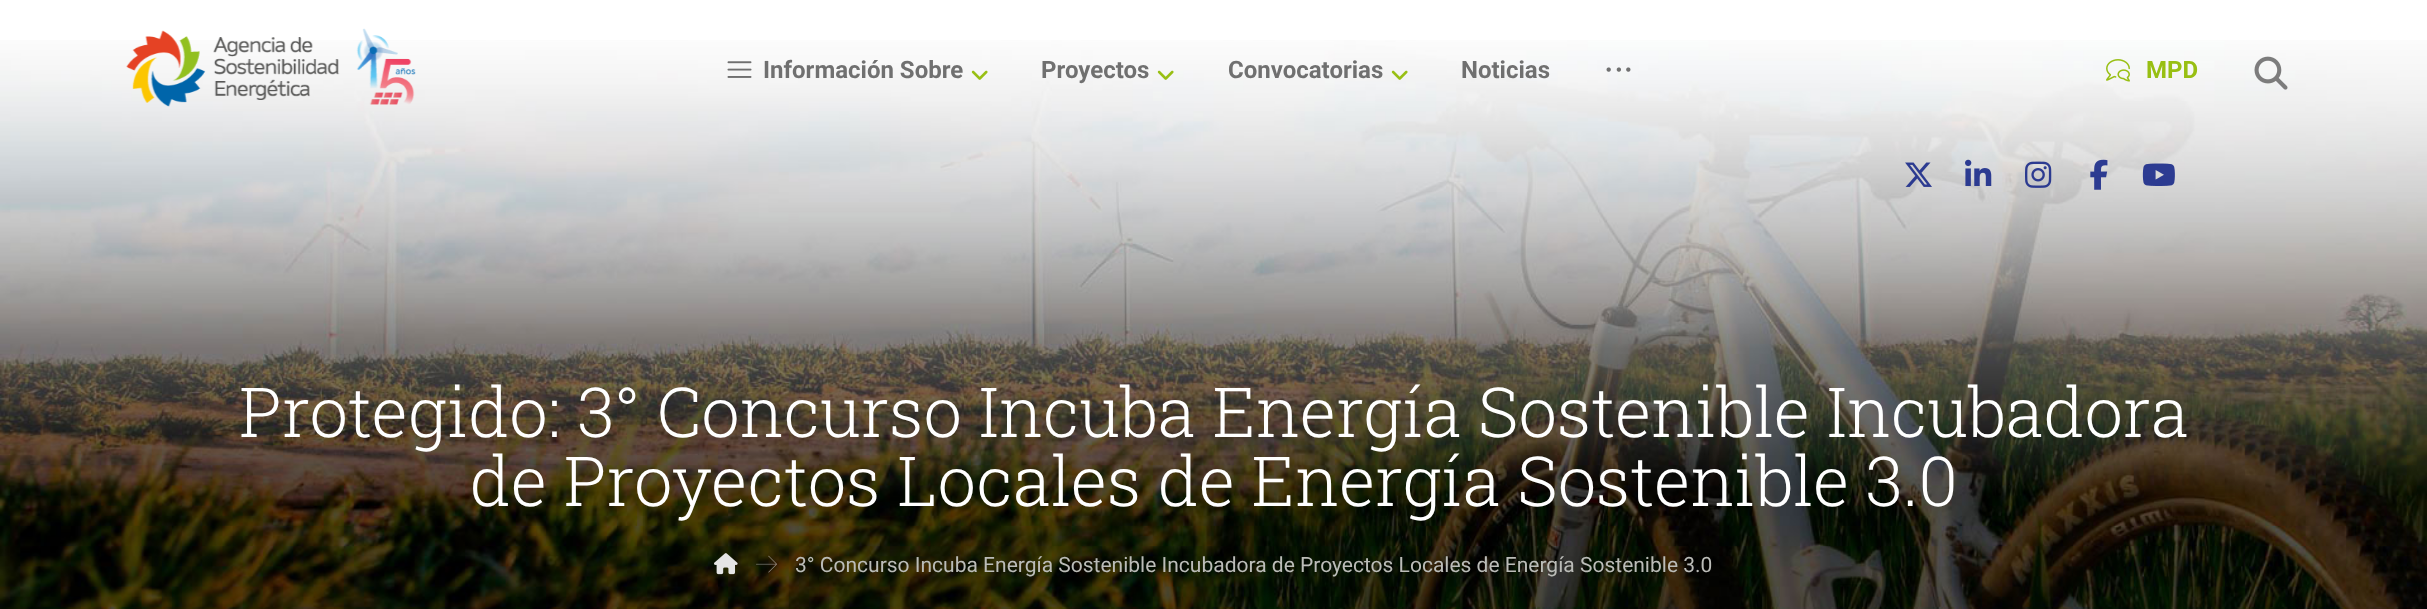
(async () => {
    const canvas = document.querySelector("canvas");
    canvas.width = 2427;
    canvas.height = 609;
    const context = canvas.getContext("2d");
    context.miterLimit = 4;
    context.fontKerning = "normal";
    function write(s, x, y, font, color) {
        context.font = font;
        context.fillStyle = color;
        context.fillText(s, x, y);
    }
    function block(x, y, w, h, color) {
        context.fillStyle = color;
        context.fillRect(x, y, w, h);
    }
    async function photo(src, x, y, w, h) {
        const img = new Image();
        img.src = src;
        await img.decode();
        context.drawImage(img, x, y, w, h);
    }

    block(0, 0, 2427, 609, "rgb(255, 255, 255)");
    await photo("media/14.png", 0, 40, 2427, 569);
    await photo("media/1.png", 126, 28, 290, 79);
    await photo("media/2.png", 727, 61, 25, 17);
    write("Información Sobre", 763, 78, "bold 24px Roboto", "rgb(112, 112, 112)");
    await photo("media/3.png", 971, 70, 17, 10);
    write("Proyectos", 1041, 78, "bold 24px Roboto", "rgb(112, 112, 112)");
    await photo("media/4.png", 1157, 70, 17, 10);
    write("Convocatorias", 1228, 78, "bold 24px Roboto", "rgb(112, 112, 112)");
    await photo("media/5.png", 1391, 70, 17, 10);
    write("Noticias", 1461, 78, "bold 24px Roboto", "rgb(112, 112, 112)");
    await photo("media/6.png", 1606, 67, 25, 5);
    await photo("media/7.png", 2106, 59, 24, 23);
    write("MPD", 2146, 78, "bold 24px Roboto", "rgb(152, 191, 19)");
    await photo("media/8.png", 2254, 56, 34, 34);
    await photo("media/9.png", 1905, 162, 27, 25);
    await photo("media/10.png", 1965, 159, 27, 27);
    await photo("media/11.png", 2025, 161, 27, 27);
    await photo("media/12.png", 2090, 159, 18, 31);
    await photo("media/13.png", 2142, 163, 33, 23);
    write("Protegido: 3° Concurso Incuba Energía Sostenible Incubadora", 239, 437, "300 69px Roboto Slab", "rgb(255, 255, 255)");
    write("de Proyectos Locales de Energía Sostenible 3.0", 470, 506, "300 69px Roboto Slab", "rgb(255, 255, 255)");
    await photo("media/15.png", 714, 553, 24, 22);
    await photo("media/16.png", 756, 555, 21, 18);
    write("3° Concurso Incuba Energía Sostenible Incubadora de Proyectos Locales de Energía Sostenible 3.0", 795, 572, "21px Roboto", "rgb(187, 188, 184)");
})();
